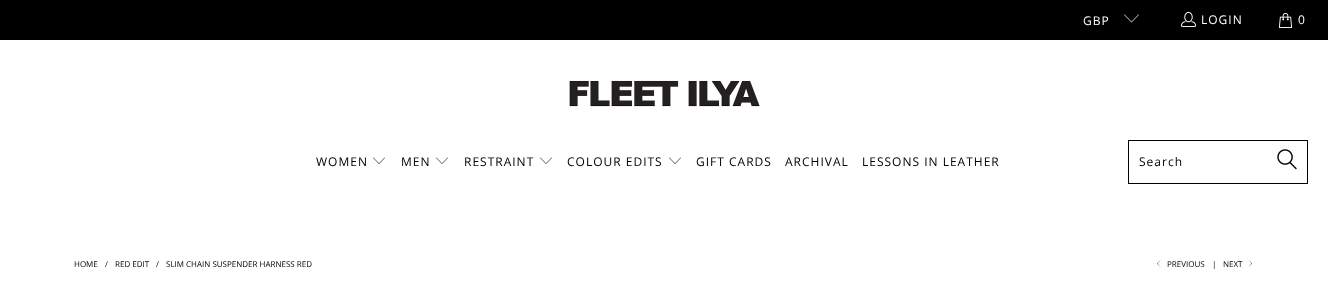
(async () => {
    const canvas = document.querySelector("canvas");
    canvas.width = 1328;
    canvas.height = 306;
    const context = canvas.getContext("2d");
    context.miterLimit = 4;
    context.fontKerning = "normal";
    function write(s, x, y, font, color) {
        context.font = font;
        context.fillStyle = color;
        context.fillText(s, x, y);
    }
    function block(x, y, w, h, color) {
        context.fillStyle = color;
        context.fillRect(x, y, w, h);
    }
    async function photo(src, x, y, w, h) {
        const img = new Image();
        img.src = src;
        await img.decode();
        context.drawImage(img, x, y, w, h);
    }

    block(0, 0, 1328, 306, "rgb(255, 255, 255)");
    block(0, 0, 1328, 40, "rgb(0, 0, 0)");
    context.letterSpacing = "1px";
    write("GBP", 1083, 25, "12px Open Sans", "rgb(255, 255, 255)");
    await photo("media/1.png", 1124, 14, 15, 9);
    await photo("media/2.png", 1181, 11, 15, 16);
    write("LOGIN", 1201, 24, "12px Open Sans", "rgb(255, 255, 255)");
    await photo("media/3.png", 1278, 13, 15, 15);
    write("0", 1298, 24, "12px Open Sans", "rgb(255, 255, 255)");
    await photo("media/4.png", 569, 80, 191, 27);
    write("WOMEN", 316, 166, "12px Open Sans", "rgb(0, 0, 0)");
    await photo("media/5.png", 373, 157, 12, 7);
    write("MEN", 401, 166, "12px Open Sans", "rgb(0, 0, 0)");
    await photo("media/5.png", 436, 157, 12, 7);
    write("RESTRAINT", 464, 166, "12px Open Sans", "rgb(0, 0, 0)");
    await photo("media/5.png", 540, 157, 12, 7);
    write("COLOUR EDITS", 567, 166, "12px Open Sans", "rgb(0, 0, 0)");
    await photo("media/5.png", 669, 157, 12, 7);
    write("GIFT CARDS", 696, 166, "12px Open Sans", "rgb(0, 0, 0)");
    write("ARCHIVAL", 785, 166, "12px Open Sans", "rgb(0, 0, 0)");
    write("LESSONS IN LEATHER", 862, 166, "12px Open Sans", "rgb(0, 0, 0)");
    context.strokeStyle = "rgb(1, 1, 1)";
    context.strokeRect(1128.5, 140.5, 179, 43);
    write("Search", 1139, 166, "12px Open Sans", "rgb(0, 0, 0)");
    await photo("media/6.png", 1277, 149, 20, 21);
    context.letterSpacing = "0px";
    write("HOME", 74, 267, "8px Open Sans", "rgb(0, 0, 0)");
    write("/", 105, 267, "8px Open Sans", "rgb(0, 0, 0)");
    write("RED EDIT", 115, 267, "8px Open Sans", "rgb(0, 0, 0)");
    write("/", 156, 267, "8px Open Sans", "rgb(0, 0, 0)");
    write("SLIM CHAIN SUSPENDER HARNESS RED", 166, 267, "8px Open Sans", "rgb(0, 0, 0)");
    context.beginPath();
    context.moveTo(1161, 267.5);
    context.lineTo(1157, 263.5);
    context.lineTo(1161, 259.5);
    context.lineTo(1157.5, 263.5);
    context.closePath();
    context.fill();
    write("PREVIOUS", 1167, 267, "8px Open Sans", "rgb(0, 0, 0)");
    write("|", 1212, 267, "8px Open Sans", "rgb(0, 0, 0)");
    write("NEXT", 1223, 267, "8px Open Sans", "rgb(0, 0, 0)");
    context.beginPath();
    context.moveTo(1248, 267.5);
    context.lineTo(1251.5, 263.5);
    context.lineTo(1248, 259.5);
    context.lineTo(1252, 263.5);
    context.closePath();
    context.fill();
})();
